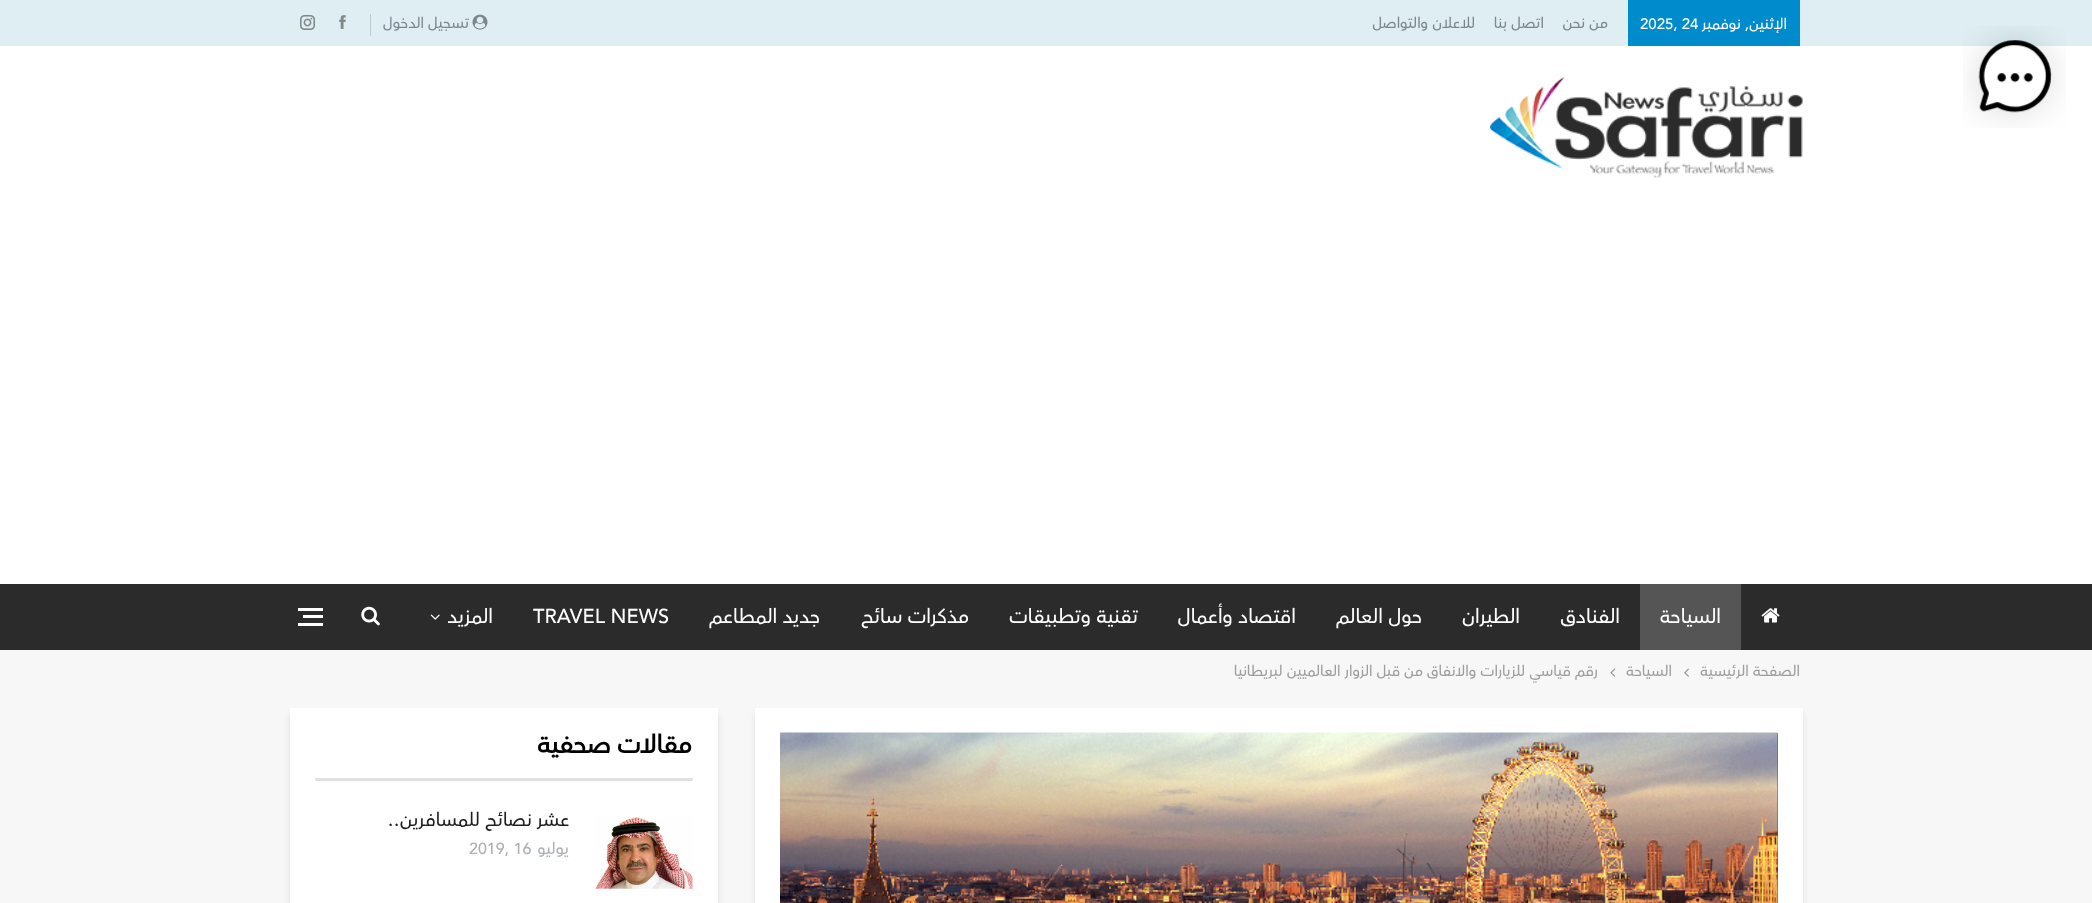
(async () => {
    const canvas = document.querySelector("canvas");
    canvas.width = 2092;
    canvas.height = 903;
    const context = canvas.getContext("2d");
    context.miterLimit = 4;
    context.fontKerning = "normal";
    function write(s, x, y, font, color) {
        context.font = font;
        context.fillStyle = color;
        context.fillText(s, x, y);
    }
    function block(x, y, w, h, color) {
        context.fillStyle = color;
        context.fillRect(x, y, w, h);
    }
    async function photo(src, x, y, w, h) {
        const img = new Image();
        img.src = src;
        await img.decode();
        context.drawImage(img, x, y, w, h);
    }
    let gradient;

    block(0, 0, 2092, 903, "rgb(247, 247, 247)");
    block(0, 46, 2092, 538, "rgb(255, 255, 255)");
    block(0, 0, 2092, 46, "rgb(222, 238, 243)");
    await photo("media/1.png", 1963, 26, 103, 102);
    block(1628, 0, 172, 46, "rgb(0, 139, 204)");
    context.direction = "rtl";
    write("الإثنين, نوفمبر", 1787, 29, "500 15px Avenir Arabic", "rgb(255, 255, 255)");
    context.direction = "ltr";
    write("2025, 24", 1640, 29, "500 15px Avenir Arabic", "rgb(255, 255, 255)");
    context.direction = "rtl";
    write("من نحن", 1608, 28, "500 15px Avenir Arabic", "rgb(125, 135, 144)");
    write("اتصل بنا", 1544, 28, "500 15px Avenir Arabic", "rgb(125, 135, 144)");
    write("للاعلان والتواصل", 1475, 28, "500 15px Avenir Arabic", "rgb(125, 135, 144)");
    await photo("media/2.png", 472, 14, 16, 16);
    write("تسجيل الدخول", 469, 28, "500 15px Avenir Arabic", "rgb(125, 135, 144)");
    block(370, 14, 1, 22, "rgb(189, 202, 207)");
    await photo("media/3.png", 339, 15, 7, 14);
    await photo("media/4.png", 300, 15, 15, 15);
    await photo("media/5.png", 1490, 77, 313, 101);
    block(0, 584, 2092, 66, "rgb(43, 43, 43)");
    await photo("media/6.png", 1761, 608, 19, 15);
    block(1640, 584, 101, 66, "rgb(85, 85, 85)");
    write("السياحة", 1721, 623, "500 20px Avenir Arabic", "rgb(255, 255, 255)");
    write("الفنادق", 1620, 623, "500 20px Avenir Arabic", "rgb(255, 255, 255)");
    write("الطيران", 1520, 623, "500 20px Avenir Arabic", "rgb(255, 255, 255)");
    write("حول العالم", 1422, 623, "500 20px Avenir Arabic", "rgb(255, 255, 255)");
    write("اقتصاد وأعمال", 1296, 623, "500 20px Avenir Arabic", "rgb(255, 255, 255)");
    write("تقنية وتطبيقات", 1138, 623, "500 20px Avenir Arabic", "rgb(255, 255, 255)");
    write("مذكرات سائح", 969, 623, "500 20px Avenir Arabic", "rgb(255, 255, 255)");
    write("جديد المطاعم", 820, 623, "500 20px Avenir Arabic", "rgb(255, 255, 255)");
    context.direction = "ltr";
    write("TRAVEL NEWS", 533, 623, "500 20px Avenir Arabic", "rgb(255, 255, 255)");
    context.direction = "rtl";
    write("المزيد", 493, 623, "500 20px Avenir Arabic", "rgb(255, 255, 255)");
    await photo("media/7.png", 430, 614, 10, 6);
    await photo("media/8.png", 361, 606, 19, 20);
    block(303, 615, 20, 3, "rgb(255, 255, 255)");
    block(298, 608, 25, 3, "rgb(255, 255, 255)");
    block(298, 623, 25, 3, "rgb(255, 255, 255)");
    write("الصفحة الرئيسية", 1800, 676, "500 15px Avenir Arabic", "rgb(158, 158, 158)");
    await photo("media/9.png", 1684, 668, 5, 9);
    write("السياحة", 1672, 676, "500 15px Avenir Arabic", "rgb(158, 158, 158)");
    await photo("media/10.png", 1610, 668, 6, 9);
    write("رقم قياسي للزيارات والانفاق من قبل الزوار العالميين لبريطانيا", 1598, 676, "500 15px Avenir Arabic", "rgb(158, 158, 158)");
    context.fillStyle = "rgba(0, 0, 0, 0.09)";
    context.filter = "blur(3px)";
    context.beginPath();
    context.rect(755, 713, 1048, 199);
    context.fill();
    context.filter = "none";
    block(755, 708, 1048, 195, "rgb(255, 255, 255)");
    block(1777, 733, 1, 170, "rgb(86, 86, 86)");
    await photo("media/11.png", 780, 732, 998, 171);
    gradient = context.createLinearGradient(1279, 845, 1279, 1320);
    gradient.addColorStop(0, "rgba(0, 0, 0, 0)");
    gradient.addColorStop(1, "rgba(0, 0, 0, 0.55)");
    context.fillStyle = gradient;
    context.fillRect(780, 864, 998, 39);
    context.fillStyle = "rgba(0, 0, 0, 0.09)";
    context.filter = "blur(3px)";
    context.beginPath();
    context.rect(290, 713, 428, 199);
    context.fill();
    context.filter = "none";
    block(290, 708, 428, 195, "rgb(255, 255, 255)");
    write("مقالات صحفية", 692, 753, "bold 25px Avenir Arabic", "rgb(0, 0, 0)");
    block(315, 778, 378, 3, "rgb(224, 224, 224)");
    await photo("media/12.png", 594, 817, 99, 72);
    write("عشر نصائح للمسافرين..", 569, 826, "500 18.75px Avenir Arabic", "rgb(29, 29, 29)");
    write("يوليو", 569, 854, "500 16px Avenir Arabic", "rgb(172, 175, 180)");
    context.direction = "ltr";
    write("2019, 16", 469, 854, "500 16px Avenir Arabic", "rgb(172, 175, 180)");
})();
